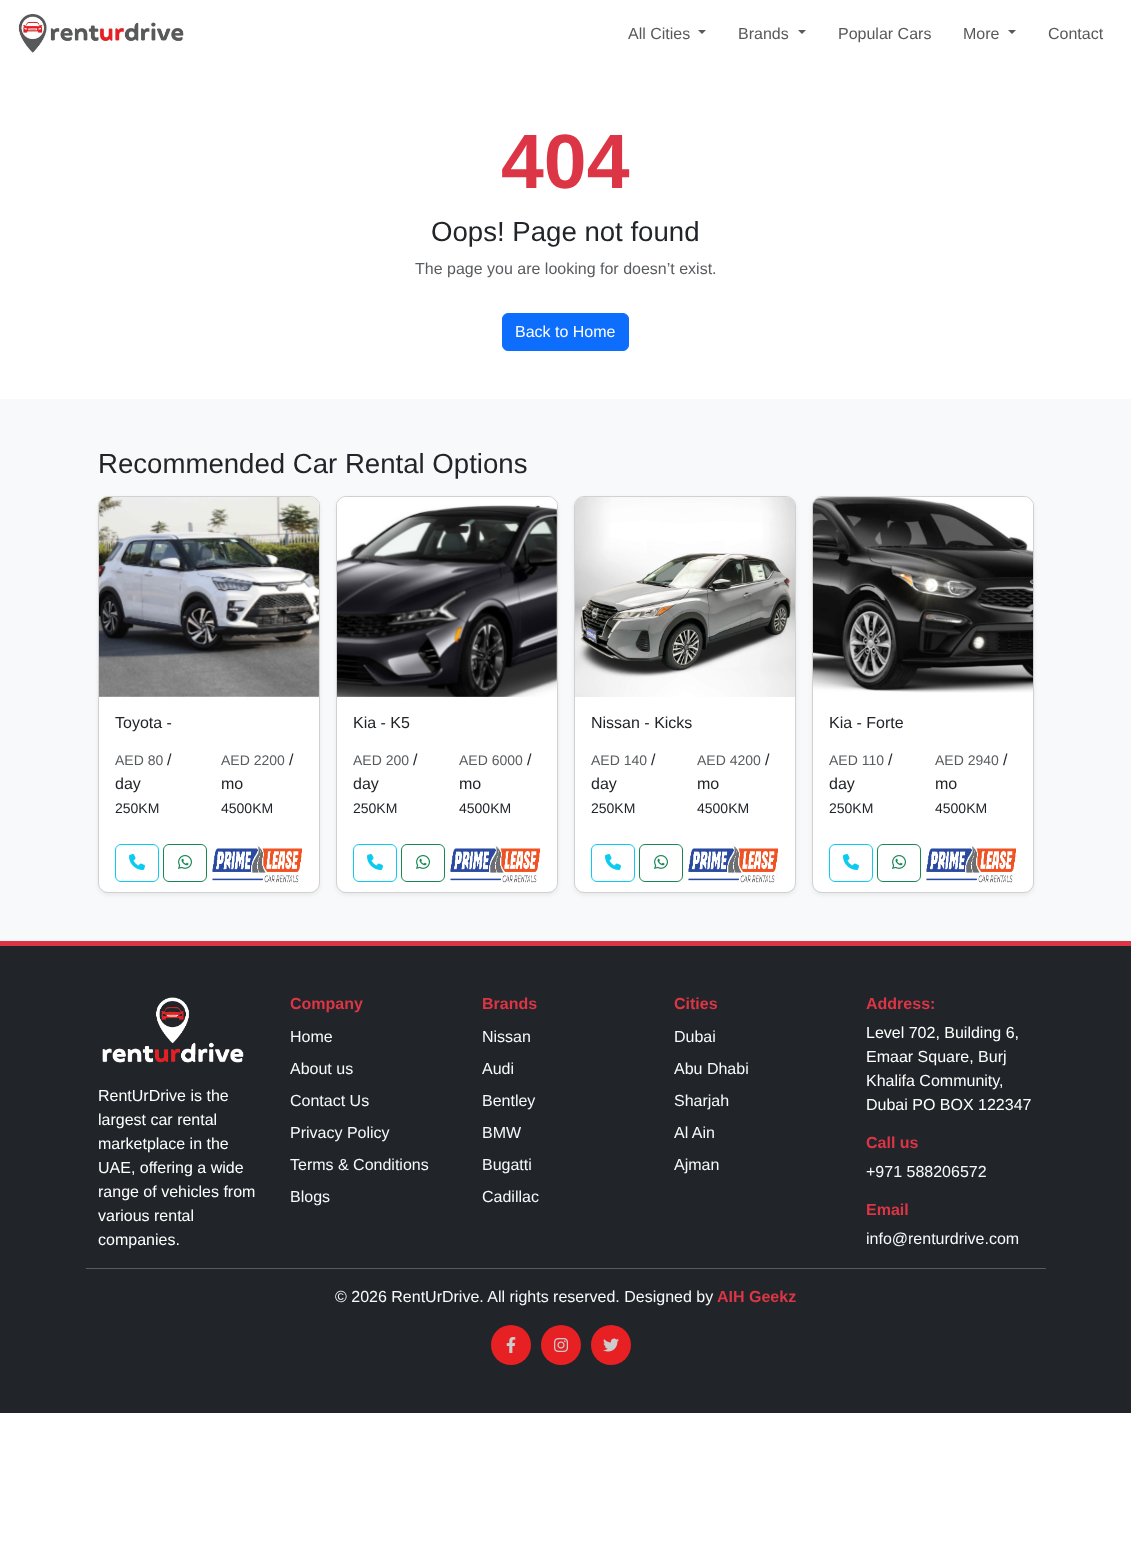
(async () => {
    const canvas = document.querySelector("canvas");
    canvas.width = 1131;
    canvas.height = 1563;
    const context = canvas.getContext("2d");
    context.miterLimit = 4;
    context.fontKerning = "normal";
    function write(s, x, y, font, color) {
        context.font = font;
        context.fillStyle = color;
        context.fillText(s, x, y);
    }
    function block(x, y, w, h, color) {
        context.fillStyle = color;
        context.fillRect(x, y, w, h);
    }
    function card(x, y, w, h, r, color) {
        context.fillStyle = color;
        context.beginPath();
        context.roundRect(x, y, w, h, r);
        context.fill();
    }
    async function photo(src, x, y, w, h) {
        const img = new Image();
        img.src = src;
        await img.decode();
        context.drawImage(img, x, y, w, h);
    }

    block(0, 0, 1131, 1563, "rgb(255, 255, 255)");
    await photo("media/1.png", 18, 13, 166, 40);
    write("All Cities", 628, 39, "16px Liberation Sans", "rgb(89, 89, 89)");
    context.beginPath();
    context.moveTo(698, 30);
    context.lineTo(706, 30);
    context.lineTo(702, 34);
    context.closePath();
    context.fill();
    write("Brands", 738, 39, "16px Liberation Sans", "rgb(89, 89, 89)");
    context.beginPath();
    context.moveTo(798, 30);
    context.lineTo(806, 30);
    context.lineTo(802, 34);
    context.closePath();
    context.fill();
    write("Popular Cars", 838, 39, "16px Liberation Sans", "rgb(89, 89, 89)");
    write("More", 963, 39, "16px Liberation Sans", "rgb(89, 89, 89)");
    context.beginPath();
    context.moveTo(1008, 30);
    context.lineTo(1016, 30);
    context.lineTo(1012, 34);
    context.closePath();
    context.fill();
    write("Contact", 1048, 39, "16px Liberation Sans", "rgb(89, 89, 89)");
    write("404", 501, 188, "bold 77px Liberation Sans", "rgb(220, 53, 69)");
    write("Oops! Page not found", 431, 241, "27.6px Liberation Sans", "rgb(33, 37, 41)");
    write("The page you are looking for doesn’t exist.", 415, 274, "16px Liberation Sans", "rgb(89, 92, 95)");
    context.fillStyle = "rgb(13, 110, 253)";
    context.beginPath();
    context.roundRect(502.5, 313.5, 126, 37, 5.5);
    context.fill();
    context.strokeStyle = "rgb(13, 110, 253)";
    context.stroke();
    write("Back to Home", 515, 337, "16px Liberation Sans", "rgb(255, 255, 255)");
    block(0, 399, 1131, 542, "rgb(248, 249, 250)");
    write("Recommended Car Rental Options", 98, 473, "27.6px Liberation Sans", "rgb(33, 37, 41)");
    context.fillStyle = "rgba(0, 0, 0, 0.07)";
    context.filter = "blur(2px)";
    context.beginPath();
    context.roundRect(98, 498, 222, 397, 10);
    context.fill();
    context.filter = "none";
    card(98, 496, 222, 397, 10, "rgb(255, 255, 255)");
    context.beginPath();
    context.roundRect(98.5, 496.5, 221, 396, 9.5);
    context.strokeStyle = "rgba(0, 0, 0, 0.18)";
    context.stroke();
    await photo("media/2.png", 99, 497, 220, 200);
    write("Toyota -", 115, 728, "16px Liberation Sans", "rgb(33, 37, 41)");
    write("AED 80", 115, 765, "14px Liberation Sans", "rgb(89, 92, 95)");
    write("/", 167, 765, "16px Liberation Sans", "rgb(33, 37, 41)");
    write("day", 115, 789, "16px Liberation Sans", "rgb(33, 37, 41)");
    write("250KM", 115, 813, "14px Liberation Sans", "rgb(33, 37, 41)");
    write("AED 2200", 221, 765, "14px Liberation Sans", "rgb(89, 92, 95)");
    write("/", 289, 765, "16px Liberation Sans", "rgb(33, 37, 41)");
    write("mo", 221, 789, "16px Liberation Sans", "rgb(33, 37, 41)");
    write("4500KM", 221, 813, "14px Liberation Sans", "rgb(33, 37, 41)");
    context.beginPath();
    context.roundRect(115.5, 844.5, 43, 37, 5.5);
    context.strokeStyle = "rgb(13, 202, 240)";
    context.stroke();
    await photo("media/3.png", 129, 854, 16, 16);
    context.beginPath();
    context.roundRect(163.5, 844.5, 43, 37, 5.5);
    context.strokeStyle = "rgb(25, 135, 84)";
    context.stroke();
    await photo("media/4.png", 178, 855, 14, 14);
    await photo("media/5.png", 212, 845, 91, 38);
    context.fillStyle = "rgba(0, 0, 0, 0.07)";
    context.filter = "blur(2px)";
    context.beginPath();
    context.roundRect(336, 498, 222, 397, 10);
    context.fill();
    context.filter = "none";
    card(336, 496, 222, 397, 10, "rgb(255, 255, 255)");
    context.beginPath();
    context.roundRect(336.5, 496.5, 221, 396, 9.5);
    context.strokeStyle = "rgba(0, 0, 0, 0.18)";
    context.stroke();
    await photo("media/6.png", 337, 497, 220, 200);
    write("Kia - K5", 353, 728, "16px Liberation Sans", "rgb(33, 37, 41)");
    write("AED 200", 353, 765, "14px Liberation Sans", "rgb(89, 92, 95)");
    write("/", 413, 765, "16px Liberation Sans", "rgb(33, 37, 41)");
    write("day", 353, 789, "16px Liberation Sans", "rgb(33, 37, 41)");
    write("250KM", 353, 813, "14px Liberation Sans", "rgb(33, 37, 41)");
    write("AED 6000", 459, 765, "14px Liberation Sans", "rgb(89, 92, 95)");
    write("/", 527, 765, "16px Liberation Sans", "rgb(33, 37, 41)");
    write("mo", 459, 789, "16px Liberation Sans", "rgb(33, 37, 41)");
    write("4500KM", 459, 813, "14px Liberation Sans", "rgb(33, 37, 41)");
    context.beginPath();
    context.roundRect(353.5, 844.5, 43, 37, 5.5);
    context.strokeStyle = "rgb(13, 202, 240)";
    context.stroke();
    await photo("media/3.png", 367, 854, 16, 16);
    context.beginPath();
    context.roundRect(401.5, 844.5, 43, 37, 5.5);
    context.strokeStyle = "rgb(25, 135, 84)";
    context.stroke();
    await photo("media/4.png", 416, 855, 14, 14);
    await photo("media/5.png", 450, 845, 91, 38);
    context.fillStyle = "rgba(0, 0, 0, 0.07)";
    context.filter = "blur(2px)";
    context.beginPath();
    context.roundRect(574, 498, 222, 397, 10);
    context.fill();
    context.filter = "none";
    card(574, 496, 222, 397, 10, "rgb(255, 255, 255)");
    context.beginPath();
    context.roundRect(574.5, 496.5, 221, 396, 9.5);
    context.strokeStyle = "rgba(0, 0, 0, 0.18)";
    context.stroke();
    await photo("media/7.png", 575, 497, 220, 200);
    write("Nissan - Kicks", 591, 728, "16px Liberation Sans", "rgb(33, 37, 41)");
    write("AED 140", 591, 765, "14px Liberation Sans", "rgb(89, 92, 95)");
    write("/", 651, 765, "16px Liberation Sans", "rgb(33, 37, 41)");
    write("day", 591, 789, "16px Liberation Sans", "rgb(33, 37, 41)");
    write("250KM", 591, 813, "14px Liberation Sans", "rgb(33, 37, 41)");
    write("AED 4200", 697, 765, "14px Liberation Sans", "rgb(89, 92, 95)");
    write("/", 765, 765, "16px Liberation Sans", "rgb(33, 37, 41)");
    write("mo", 697, 789, "16px Liberation Sans", "rgb(33, 37, 41)");
    write("4500KM", 697, 813, "14px Liberation Sans", "rgb(33, 37, 41)");
    context.beginPath();
    context.roundRect(591.5, 844.5, 43, 37, 5.5);
    context.strokeStyle = "rgb(13, 202, 240)";
    context.stroke();
    await photo("media/3.png", 605, 854, 16, 16);
    context.beginPath();
    context.roundRect(639.5, 844.5, 43, 37, 5.5);
    context.strokeStyle = "rgb(25, 135, 84)";
    context.stroke();
    await photo("media/4.png", 654, 855, 14, 14);
    await photo("media/5.png", 688, 845, 91, 38);
    context.fillStyle = "rgba(0, 0, 0, 0.07)";
    context.filter = "blur(2px)";
    context.beginPath();
    context.roundRect(812, 498, 222, 397, 10);
    context.fill();
    context.filter = "none";
    card(812, 496, 222, 397, 10, "rgb(255, 255, 255)");
    context.beginPath();
    context.roundRect(812.5, 496.5, 221, 396, 9.5);
    context.strokeStyle = "rgba(0, 0, 0, 0.18)";
    context.stroke();
    await photo("media/8.png", 813, 497, 220, 196);
    write("Kia - Forte", 829, 728, "16px Liberation Sans", "rgb(33, 37, 41)");
    write("AED 110", 829, 765, "14px Liberation Sans", "rgb(89, 92, 95)");
    write("/", 888, 765, "16px Liberation Sans", "rgb(33, 37, 41)");
    write("day", 829, 789, "16px Liberation Sans", "rgb(33, 37, 41)");
    write("250KM", 829, 813, "14px Liberation Sans", "rgb(33, 37, 41)");
    write("AED 2940", 935, 765, "14px Liberation Sans", "rgb(89, 92, 95)");
    write("/", 1003, 765, "16px Liberation Sans", "rgb(33, 37, 41)");
    write("mo", 935, 789, "16px Liberation Sans", "rgb(33, 37, 41)");
    write("4500KM", 935, 813, "14px Liberation Sans", "rgb(33, 37, 41)");
    context.beginPath();
    context.roundRect(829.5, 844.5, 43, 37, 5.5);
    context.strokeStyle = "rgb(13, 202, 240)";
    context.stroke();
    await photo("media/3.png", 843, 854, 16, 16);
    context.beginPath();
    context.roundRect(877.5, 844.5, 43, 37, 5.5);
    context.strokeStyle = "rgb(25, 135, 84)";
    context.stroke();
    await photo("media/4.png", 892, 855, 14, 14);
    await photo("media/5.png", 926, 845, 91, 38);
    block(0, 946, 1131, 467, "rgb(33, 37, 41)");
    block(0, 941, 1131, 5, "rgb(220, 53, 69)");
    await photo("media/9.png", 102, 997, 142, 66);
    write("RentUrDrive is the", 98, 1101, "16px Liberation Sans", "rgb(255, 255, 255)");
    write("largest car rental", 98, 1125, "16px Liberation Sans", "rgb(255, 255, 255)");
    write("marketplace in the", 98, 1149, "16px Liberation Sans", "rgb(255, 255, 255)");
    write("UAE, offering a wide", 98, 1173, "16px Liberation Sans", "rgb(255, 255, 255)");
    write("range of vehicles from", 98, 1197, "16px Liberation Sans", "rgb(255, 255, 255)");
    write("various rental", 98, 1221, "16px Liberation Sans", "rgb(255, 255, 255)");
    write("companies.", 98, 1245, "16px Liberation Sans", "rgb(255, 255, 255)");
    write("Company", 290, 1009, "bold 16px Liberation Sans", "rgb(220, 53, 69)");
    write("Home", 290, 1042, "16px Liberation Sans", "rgb(248, 249, 250)");
    write("About us", 290, 1074, "16px Liberation Sans", "rgb(248, 249, 250)");
    write("Contact Us", 290, 1106, "16px Liberation Sans", "rgb(248, 249, 250)");
    write("Privacy Policy", 290, 1138, "16px Liberation Sans", "rgb(248, 249, 250)");
    write("Terms & Conditions", 290, 1170, "16px Liberation Sans", "rgb(248, 249, 250)");
    write("Blogs", 290, 1202, "16px Liberation Sans", "rgb(248, 249, 250)");
    write("Brands", 482, 1009, "bold 16px Liberation Sans", "rgb(220, 53, 69)");
    write("Nissan", 482, 1042, "16px Liberation Sans", "rgb(248, 249, 250)");
    write("Audi", 482, 1074, "16px Liberation Sans", "rgb(248, 249, 250)");
    write("Bentley", 482, 1106, "16px Liberation Sans", "rgb(248, 249, 250)");
    write("BMW", 482, 1138, "16px Liberation Sans", "rgb(248, 249, 250)");
    write("Bugatti", 482, 1170, "16px Liberation Sans", "rgb(248, 249, 250)");
    write("Cadillac", 482, 1202, "16px Liberation Sans", "rgb(248, 249, 250)");
    write("Cities", 674, 1009, "bold 16px Liberation Sans", "rgb(220, 53, 69)");
    write("Dubai", 674, 1042, "16px Liberation Sans", "rgb(248, 249, 250)");
    write("Abu Dhabi", 674, 1074, "16px Liberation Sans", "rgb(248, 249, 250)");
    write("Sharjah", 674, 1106, "16px Liberation Sans", "rgb(248, 249, 250)");
    write("Al Ain", 674, 1138, "16px Liberation Sans", "rgb(248, 249, 250)");
    write("Ajman", 674, 1170, "16px Liberation Sans", "rgb(248, 249, 250)");
    write("Address:", 866, 1009, "bold 16px Liberation Sans", "rgb(220, 53, 69)");
    write("Level 702, Building 6,", 866, 1038, "16px Liberation Sans", "rgb(255, 255, 255)");
    write("Emaar Square, Burj", 866, 1062, "16px Liberation Sans", "rgb(255, 255, 255)");
    write("Khalifa Community,", 866, 1086, "16px Liberation Sans", "rgb(255, 255, 255)");
    write("Dubai PO BOX 122347", 866, 1110, "16px Liberation Sans", "rgb(255, 255, 255)");
    write("Call us", 866, 1148, "bold 16px Liberation Sans", "rgb(220, 53, 69)");
    write("+971 588206572", 866, 1177, "16px Liberation Sans", "rgb(248, 249, 250)");
    write("Email", 866, 1215, "bold 16px Liberation Sans", "rgb(220, 53, 69)");
    write("info@renturdrive.com", 866, 1244, "16px Liberation Sans", "rgb(248, 249, 250)");
    block(86, 1268, 960, 1, "rgb(89, 92, 95)");
    write("© 2026 RentUrDrive. All rights reserved. Designed by", 335, 1302, "16px Liberation Sans", "rgb(248, 249, 250)");
    write("AIH Geekz", 717, 1302, "bold 16px Liberation Sans", "rgb(220, 53, 69)");
    context.fillStyle = "rgb(231, 32, 36)";
    context.beginPath();
    context.arc(511, 1345, 20, 0, Math.PI * 2);
    context.fill();
    await photo("media/10.png", 506, 1337, 10, 16);
    context.beginPath();
    context.arc(561, 1345, 20, 0, Math.PI * 2);
    context.fill();
    await photo("media/11.png", 554, 1338, 14, 14);
    context.beginPath();
    context.arc(611, 1345, 20, 0, Math.PI * 2);
    context.fill();
    await photo("media/12.png", 603, 1338, 16, 14);
})();
